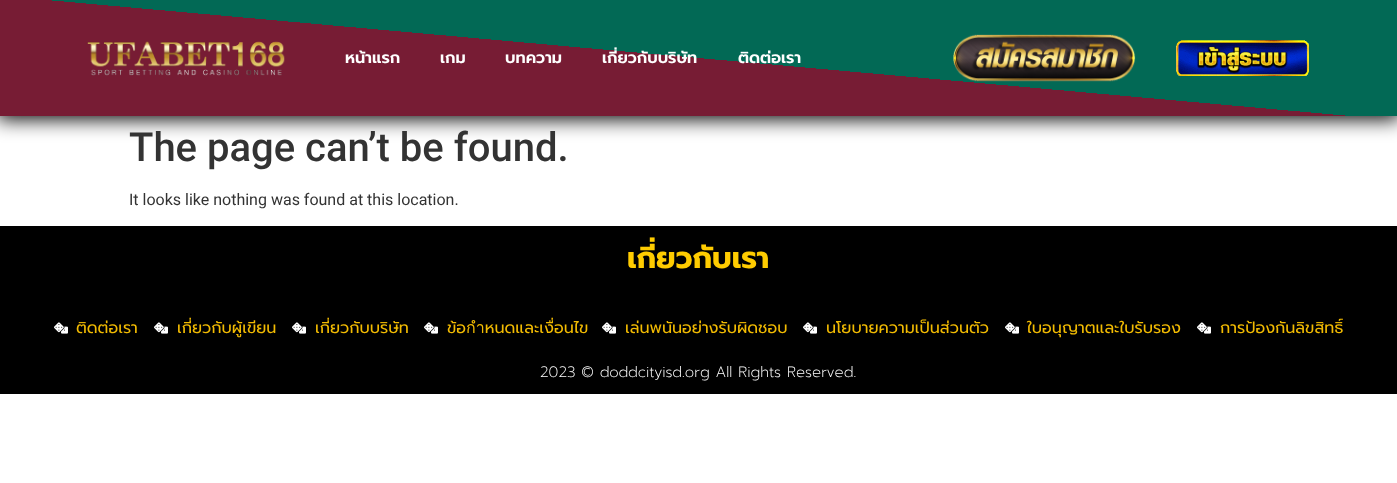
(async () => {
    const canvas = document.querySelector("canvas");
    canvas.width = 1397;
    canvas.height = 483;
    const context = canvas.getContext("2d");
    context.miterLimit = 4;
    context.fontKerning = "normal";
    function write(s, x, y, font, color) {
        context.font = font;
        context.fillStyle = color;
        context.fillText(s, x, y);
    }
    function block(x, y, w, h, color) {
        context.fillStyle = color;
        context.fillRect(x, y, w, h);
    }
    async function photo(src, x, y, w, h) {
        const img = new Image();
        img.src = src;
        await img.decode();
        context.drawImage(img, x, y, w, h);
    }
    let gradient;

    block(0, 0, 1397, 483, "rgb(255, 255, 255)");
    context.fillStyle = "rgb(0, 0, 0)";
    context.filter = "blur(10px)";
    context.beginPath();
    context.rect(-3, -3, 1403, 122);
    context.fill();
    context.filter = "none";
    gradient = context.createLinearGradient(688, 176, 709, -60);
    gradient.addColorStop(0.5, "rgb(119, 28, 52)");
    gradient.addColorStop(0.5, "rgb(2, 105, 85)");
    context.fillStyle = gradient;
    context.fillRect(0, 0, 1397, 116);
    await photo("media/1.png", 87, 41, 198, 35);
    write("หน้าแรก", 345, 63, "600 16px Prompt", "rgb(255, 255, 255)");
    write("เกม", 440, 63, "600 16px Prompt", "rgb(255, 255, 255)");
    write("บทความ", 505, 63, "600 16px Prompt", "rgb(255, 255, 255)");
    write("เกี่ยวกับบริษัท", 602, 63, "600 16px Prompt", "rgb(255, 255, 255)");
    write("ติดต่อเรา", 738, 63, "600 16px Prompt", "rgb(255, 255, 255)");
    await photo("media/2.png", 953, 34, 183, 48);
    await photo("media/3.png", 1176, 40, 133, 36);
    write("The page can’t be found.", 129, 161, "500 40px Roboto", "rgb(51, 51, 51)");
    write("It looks like nothing was found at this location.", 129, 205, "16px Roboto", "rgb(51, 51, 51)");
    block(0, 226, 1397, 168, "rgb(0, 0, 0)");
    write("เกี่ยวกับเรา", 627, 268, "bold 30px Prompt", "rgb(255, 204, 0)");
    await photo("media/4.png", 54, 322, 14, 12);
    write("ติดต่อเรา", 76, 333, "16px Prompt", "rgb(242, 187, 2)");
    await photo("media/4.png", 154, 322, 14, 12);
    write("เกี่ยวกับผู้เขียน", 177, 333, "16px Prompt", "rgb(242, 187, 2)");
    await photo("media/4.png", 292, 322, 14, 12);
    write("เกี่ยวกับบริษัท", 315, 333, "16px Prompt", "rgb(242, 187, 2)");
    await photo("media/4.png", 424, 322, 14, 12);
    write("ข้อกำหนดและเงื่อนไข", 447, 333, "16px Prompt", "rgb(242, 187, 2)");
    await photo("media/4.png", 602, 322, 14, 12);
    write("เล่นพนันอย่างรับผิดชอบ", 625, 333, "16px Prompt", "rgb(242, 187, 2)");
    await photo("media/4.png", 803, 322, 14, 12);
    write("นโยบายความเป็นส่วนตัว", 826, 333, "16px Prompt", "rgb(242, 187, 2)");
    await photo("media/4.png", 1005, 322, 14, 12);
    write("ใบอนุญาตและใบรับรอง", 1027, 333, "16px Prompt", "rgb(242, 187, 2)");
    await photo("media/4.png", 1197, 322, 14, 12);
    write("การป้องกันลิขสิทธิ์", 1220, 333, "16px Prompt", "rgb(242, 187, 2)");
    write("2023 © doddcityisd.org All Rights Reserved.", 540, 377, "200 15px Prompt", "rgb(255, 255, 255)");
})();
